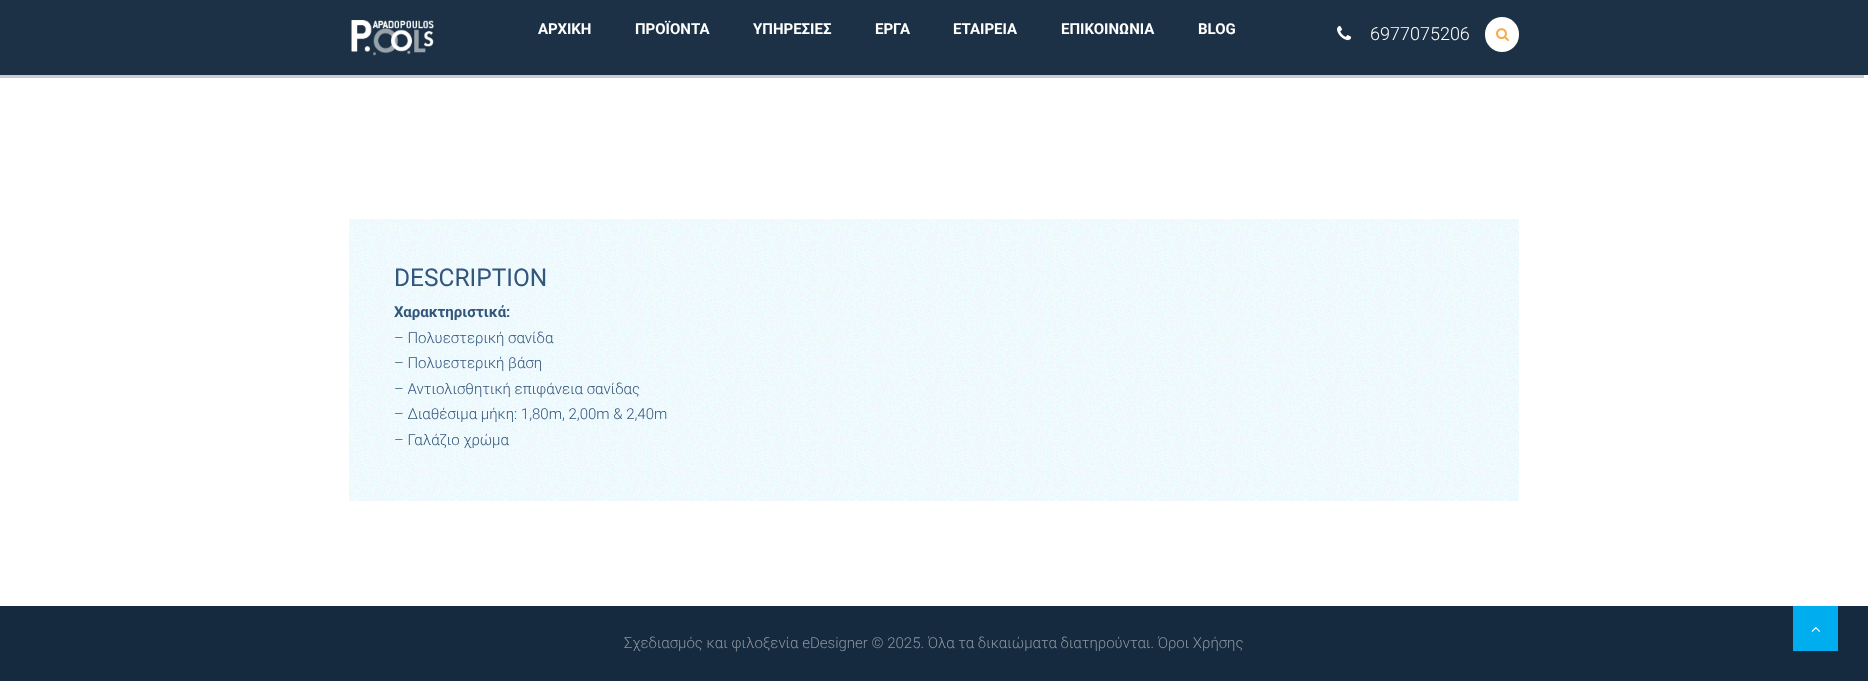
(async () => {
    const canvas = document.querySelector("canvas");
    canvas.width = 1868;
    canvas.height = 681;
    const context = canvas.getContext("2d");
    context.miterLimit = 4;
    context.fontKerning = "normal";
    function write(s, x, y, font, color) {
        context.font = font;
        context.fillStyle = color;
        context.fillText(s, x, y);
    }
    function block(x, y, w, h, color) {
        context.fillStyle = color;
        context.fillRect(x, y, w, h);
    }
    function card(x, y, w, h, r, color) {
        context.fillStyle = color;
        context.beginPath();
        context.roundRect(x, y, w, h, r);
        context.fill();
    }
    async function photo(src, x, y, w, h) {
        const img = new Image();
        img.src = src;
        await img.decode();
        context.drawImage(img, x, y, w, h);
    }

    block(0, 0, 1868, 681, "rgb(255, 255, 255)");
    context.fillStyle = "rgb(204, 204, 204)";
    context.beginPath();
    context.moveTo(-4, 3);
    context.lineTo(-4, 78);
    context.lineTo(1864, 78);
    context.lineTo(1864, 75);
    context.lineTo(0, 75);
    context.lineTo(0, 3);
    context.closePath();
    context.fill();
    block(0, 0, 1868, 75, "rgb(28, 49, 69)");
    await photo("media/1.png", 351, 20, 83, 36);
    write("ΑΡΧΙΚΗ", 538, 34, "bold 15px Roboto", "rgb(255, 255, 255)");
    write("ΠΡΟΪΟΝΤΑ", 635, 34, "bold 15px Roboto", "rgb(255, 255, 255)");
    write("ΥΠΗΡΕΣΙΕΣ", 753, 34, "bold 15px Roboto", "rgb(255, 255, 255)");
    write("ΕΡΓΑ", 875, 34, "bold 15px Roboto", "rgb(255, 255, 255)");
    write("ΕΤΑΙΡΕΙΑ", 953, 34, "bold 15px Roboto", "rgb(255, 255, 255)");
    write("ΕΠΙΚΟΙΝΩΝΙΑ", 1061, 34, "bold 15px Roboto", "rgb(255, 255, 255)");
    write("BLOG", 1198, 34, "bold 15px Roboto", "rgb(255, 255, 255)");
    await photo("media/2.png", 1337, 26, 15, 15);
    write("6977075206", 1370, 40, "300 18px Roboto", "rgb(255, 255, 255)");
    card(1485, 17, 34, 35, 17, "rgb(255, 255, 255)");
    await photo("media/3.png", 1496, 28, 13, 14);
    await photo("media/4.png", 349, 219, 1170, 282);
    write("DESCRIPTION", 394, 286, "24.5px Roboto", "rgb(51, 86, 123)");
    write("Χαρακτηριστικά:", 394, 317, "bold 15px Roboto", "rgb(51, 86, 123)");
    write("– Πολυεστερική σανίδα", 394, 343, "300 15px Roboto", "rgb(51, 86, 123)");
    write("– Πολυεστερική βάση", 394, 368, "300 15px Roboto", "rgb(51, 86, 123)");
    write("– Αντιολισθητική επιφάνεια σανίδας", 394, 394, "300 15px Roboto", "rgb(51, 86, 123)");
    write("– Διαθέσιμα μήκη: 1,80m, 2,00m & 2,40m", 394, 419, "300 15px Roboto", "rgb(51, 86, 123)");
    write("– Γαλάζιο χρώμα", 394, 445, "300 15px Roboto", "rgb(51, 86, 123)");
    block(0, 606, 1868, 75, "rgb(21, 42, 63)");
    write("Σχεδιασμός και φιλοξενία eDesigner © 2025. Όλα τα δικαιώματα διατηρούνται. Όροι Χρήσης", 624, 648, "300 15px Roboto", "rgb(138, 149, 159)");
    block(1793, 606, 45, 45, "rgb(0, 174, 239)");
    await photo("media/5.png", 1811, 627, 9, 5);
})();
